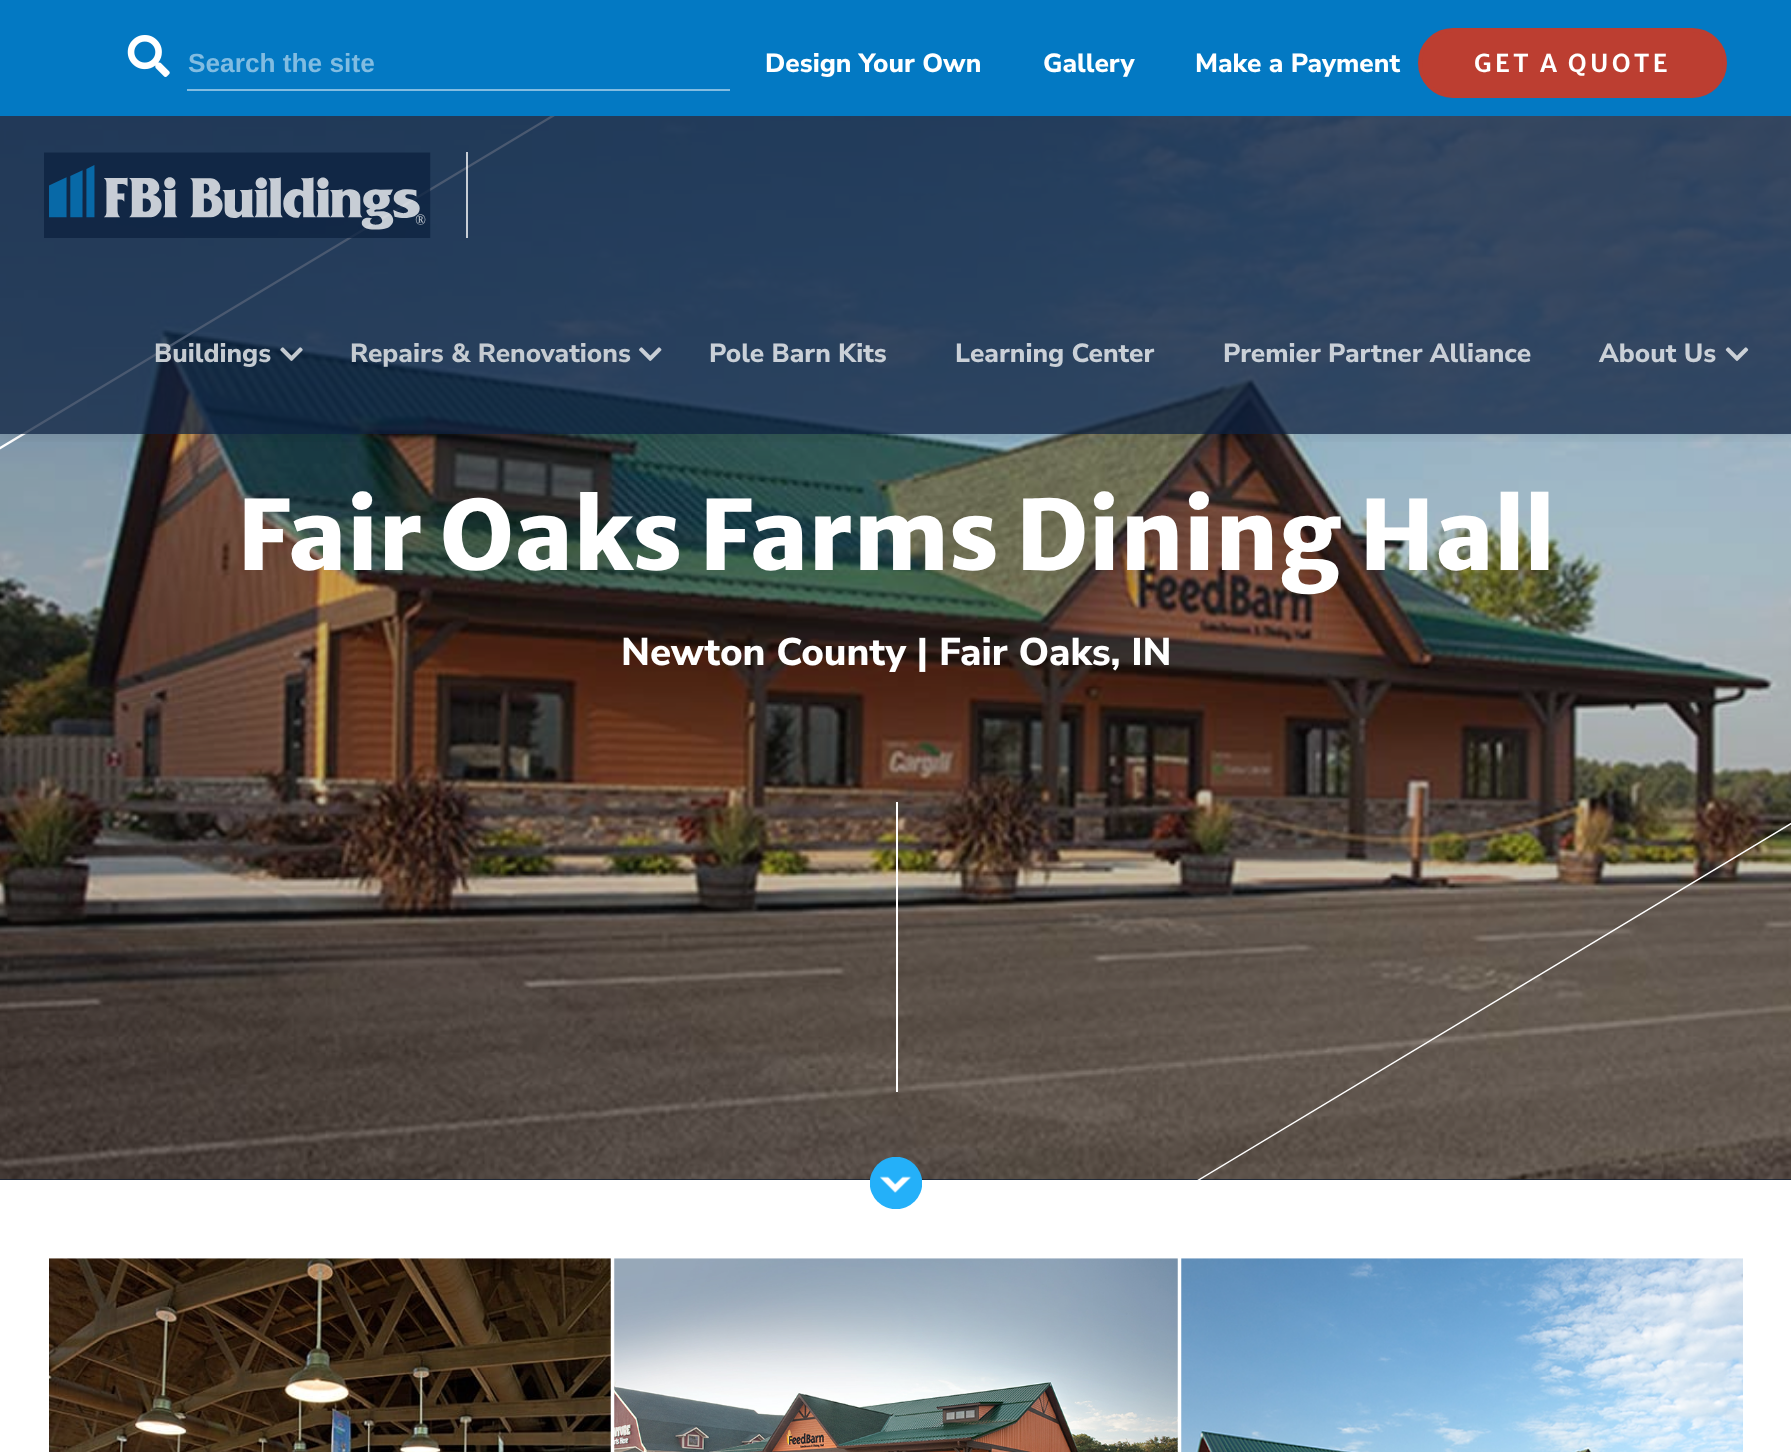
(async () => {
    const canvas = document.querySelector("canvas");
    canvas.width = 1791;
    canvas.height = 1452;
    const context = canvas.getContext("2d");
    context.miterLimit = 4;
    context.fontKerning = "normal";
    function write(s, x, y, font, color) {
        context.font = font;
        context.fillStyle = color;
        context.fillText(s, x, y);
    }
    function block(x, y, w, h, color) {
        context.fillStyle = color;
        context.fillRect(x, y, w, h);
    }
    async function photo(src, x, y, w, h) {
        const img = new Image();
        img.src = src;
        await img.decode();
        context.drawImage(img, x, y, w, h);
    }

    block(0, 0, 1791, 1452, "rgb(255, 255, 255)");
    block(0, 1179, 1791, 1, "rgb(16, 32, 54)");
    await photo("media/6.png", 0, 116, 1791, 1064);
    context.fillStyle = "rgb(255, 255, 255)";
    context.beginPath();
    context.moveTo(906, -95);
    context.lineTo(-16, 459);
    context.lineTo(-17, 457);
    context.lineTo(905, -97);
    context.closePath();
    context.fill();
    context.save();
    context.beginPath();
    context.rect(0, 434, 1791, 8);
    context.clip();
    context.fillStyle = "rgba(0, 0, 0, 0.1)";
    context.filter = "blur(9px)";
    context.beginPath();
    context.rect(0, 0, 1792, 434);
    context.fill();
    context.filter = "none";
    context.restore();
    block(0, 0, 1791, 116, "rgb(3, 121, 195)");
    await photo("media/1.png", 127, 35, 43, 42);
    block(187, 89, 543, 2, "rgb(129, 188, 225)");
    write("Search the site", 188, 72, "bold 26.25px Liberation Sans", "rgb(129, 188, 225)");
    write("Design Your Own", 765, 72, "800 26.25px Nunito Sans", "rgb(255, 255, 255)");
    write("Gallery", 1043, 72, "800 26.25px Nunito Sans", "rgb(255, 255, 255)");
    write("Make a Payment", 1195, 72, "800 26.25px Nunito Sans", "rgb(255, 255, 255)");
    context.fillStyle = "rgb(188, 62, 49)";
    context.beginPath();
    context.roundRect(1420, 30, 305, 66, 33);
    context.fill();
    context.strokeStyle = "rgb(188, 62, 49)";
    context.lineWidth = 4;
    context.stroke();
    context.letterSpacing = "3.5px";
    write("GET A QUOTE", 1474, 72, "600 24.5px Merriweather Sans", "rgb(255, 255, 255)");
    block(0, 116, 1791, 318, "rgba(13, 34, 64, 0.75)");
    block(466, 152, 2, 86, "rgba(255, 255, 255, 0.75)");
    await photo("media/2.png", 44, 152, 387, 86);
    context.letterSpacing = "0px";
    write("Buildings", 154, 362, "800 26.25px Nunito Sans", "rgb(197, 203, 209)");
    await photo("media/3.png", 280, 347, 23, 14);
    write("Repairs & Renovations", 350, 362, "800 26.25px Nunito Sans", "rgb(197, 203, 209)");
    await photo("media/4.png", 639, 347, 23, 14);
    write("Pole Barn Kits", 709, 362, "800 26.25px Nunito Sans", "rgb(202, 208, 215)");
    write("Learning Center", 955, 362, "800 26.25px Nunito Sans", "rgb(202, 208, 215)");
    write("Premier Partner Alliance", 1223, 362, "800 26.25px Nunito Sans", "rgb(202, 208, 215)");
    write("About Us", 1599, 362, "800 26.25px Nunito Sans", "rgb(202, 208, 215)");
    await photo("media/5.png", 1725, 347, 24, 14);
    context.save();
    context.beginPath();
    context.rect(0, 98, 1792, 1082);
    context.clip();
    context.fillStyle = "rgb(255, 255, 255)";
    context.beginPath();
    context.moveTo(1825, 804);
    context.lineTo(904, 1358);
    context.lineTo(903, 1357);
    context.lineTo(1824, 803);
    context.closePath();
    context.fill();
    context.restore();
    write("Fair Oaks Farms Dining Hall", 237, 570, "800 96.25px Merriweather Sans", "rgb(255, 255, 255)");
    write("Newton County | Fair Oaks, IN", 621, 665, "800 38.5px Nunito Sans", "rgb(255, 255, 255)");
    block(896, 802, 2, 290, "rgb(255, 255, 255)");
    await photo("media/7.png", 870, 1157, 52, 52);
    await photo("media/8.png", 49, 1258, 562, 194);
    await photo("media/9.png", 614, 1258, 564, 194);
    await photo("media/10.png", 1181, 1258, 562, 194);
})();
